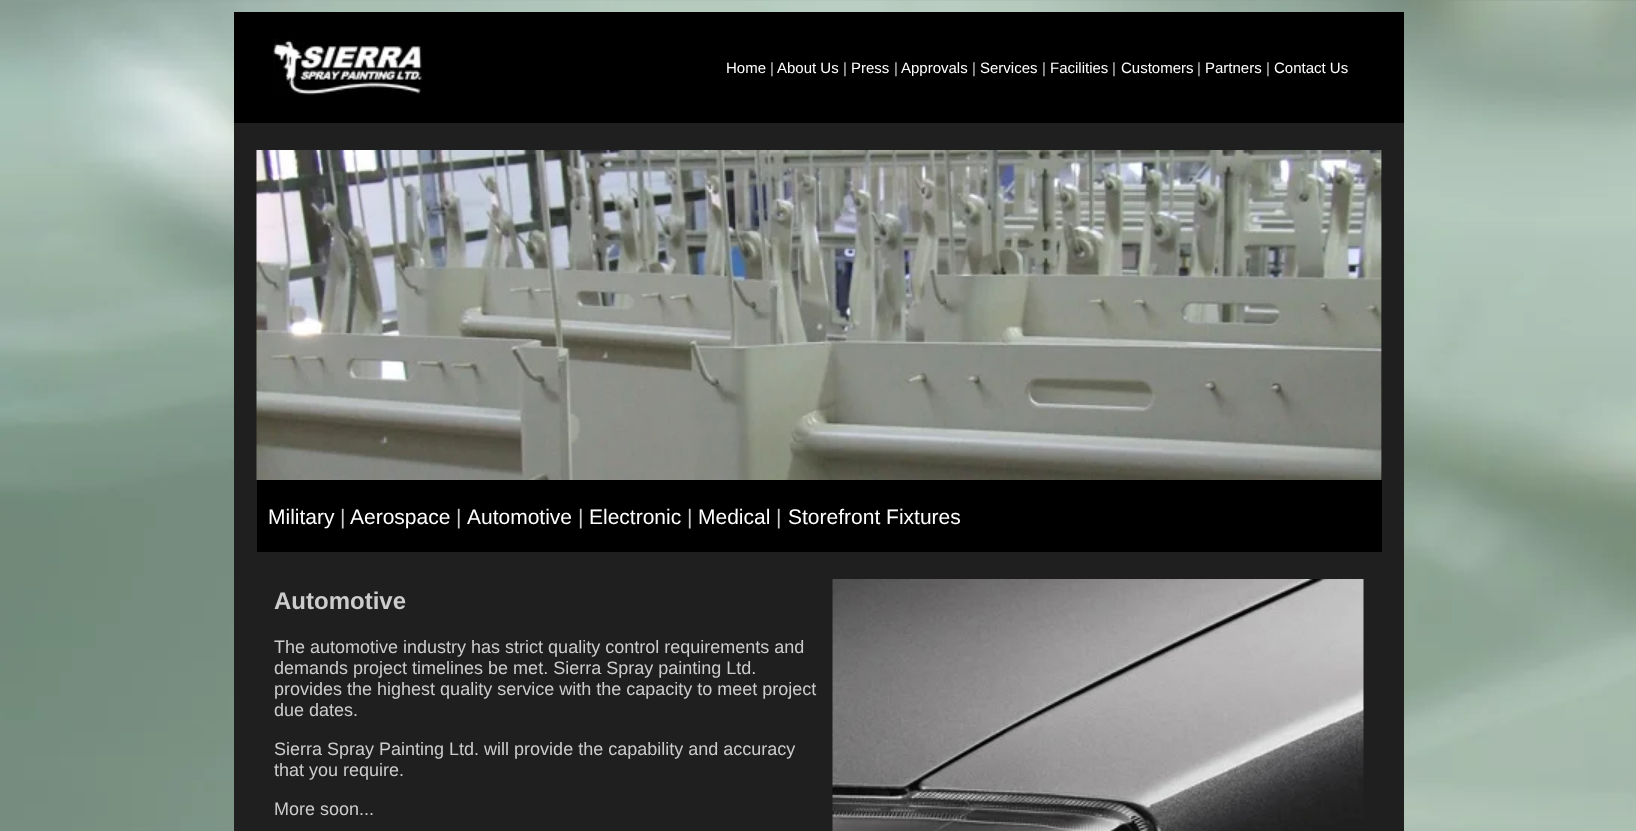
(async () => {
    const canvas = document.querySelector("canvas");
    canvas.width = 1636;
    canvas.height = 831;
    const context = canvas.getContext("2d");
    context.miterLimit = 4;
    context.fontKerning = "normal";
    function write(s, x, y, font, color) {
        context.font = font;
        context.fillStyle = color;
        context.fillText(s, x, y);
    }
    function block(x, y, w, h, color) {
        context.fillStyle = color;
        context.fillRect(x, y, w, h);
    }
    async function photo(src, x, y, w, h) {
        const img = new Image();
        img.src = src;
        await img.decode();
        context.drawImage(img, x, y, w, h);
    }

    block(0, 0, 1636, 831, "rgb(255, 255, 255)");
    await photo("media/1.png", 0, 0, 1636, 831);
    block(234, 12, 1170, 111, "rgb(0, 0, 0)");
    await photo("media/2.png", 273, 39, 149, 56);
    write("Home", 726, 73, "15px Liberation Sans", "rgb(255, 255, 255)");
    write("|", 770, 73, "15px Liberation Sans", "rgb(204, 204, 204)");
    write("About Us", 777, 73, "15px Liberation Sans", "rgb(255, 255, 255)");
    write("|", 843, 73, "15px Liberation Sans", "rgb(204, 204, 204)");
    write("Press", 851, 73, "15px Liberation Sans", "rgb(255, 255, 255)");
    write("|", 894, 73, "15px Liberation Sans", "rgb(204, 204, 204)");
    write("Approvals", 901, 73, "15px Liberation Sans", "rgb(255, 255, 255)");
    write("|", 972, 73, "15px Liberation Sans", "rgb(204, 204, 204)");
    write("Services", 980, 73, "15px Liberation Sans", "rgb(255, 255, 255)");
    write("|", 1042, 73, "15px Liberation Sans", "rgb(204, 204, 204)");
    write("Facilities", 1050, 73, "15px Liberation Sans", "rgb(255, 255, 255)");
    write("|", 1112, 73, "15px Liberation Sans", "rgb(204, 204, 204)");
    write("Customers", 1121, 73, "15px Liberation Sans", "rgb(255, 255, 255)");
    write("|", 1197, 73, "15px Liberation Sans", "rgb(204, 204, 204)");
    write("Partners", 1205, 73, "15px Liberation Sans", "rgb(255, 255, 255)");
    write("|", 1266, 73, "15px Liberation Sans", "rgb(204, 204, 204)");
    write("Contact Us", 1274, 73, "15px Liberation Sans", "rgb(255, 255, 255)");
    block(234, 123, 1170, 708, "rgb(31, 31, 31)");
    block(1381, 150, 1, 330, "rgb(0, 0, 0)");
    await photo("media/3.png", 256, 150, 1126, 330);
    block(257, 480, 1125, 72, "rgb(0, 0, 0)");
    write("Military", 268, 524, "21px Liberation Sans", "rgb(255, 255, 255)");
    write("|", 340, 524, "21px Liberation Sans", "rgb(204, 204, 204)");
    write("Aerospace", 350, 524, "21px Liberation Sans", "rgb(255, 255, 255)");
    write("|", 456, 524, "21px Liberation Sans", "rgb(204, 204, 204)");
    write("Automotive", 467, 524, "21px Liberation Sans", "rgb(255, 255, 255)");
    write("|", 578, 524, "21px Liberation Sans", "rgb(204, 204, 204)");
    write("Electronic", 589, 524, "21px Liberation Sans", "rgb(255, 255, 255)");
    write("|", 687, 524, "21px Liberation Sans", "rgb(204, 204, 204)");
    write("Medical", 698, 524, "21px Liberation Sans", "rgb(255, 255, 255)");
    write("|", 776, 524, "21px Liberation Sans", "rgb(204, 204, 204)");
    write("Storefront Fixtures", 788, 524, "21px Liberation Sans", "rgb(255, 255, 255)");
    write("Automotive", 274, 609, "bold 24px Liberation Sans", "rgb(204, 204, 204)");
    write("The automotive industry has strict quality control requirements and", 274, 653, "18px Liberation Sans", "rgb(204, 204, 204)");
    write("demands project timelines be met. Sierra Spray painting Ltd.", 274, 674, "18px Liberation Sans", "rgb(204, 204, 204)");
    write("provides the highest quality service with the capacity to meet project", 274, 695, "18px Liberation Sans", "rgb(204, 204, 204)");
    write("due dates.", 274, 716, "18px Liberation Sans", "rgb(204, 204, 204)");
    write("Sierra Spray Painting Ltd. will provide the capability and accuracy", 274, 755, "18px Liberation Sans", "rgb(204, 204, 204)");
    write("that you require.", 274, 776, "18px Liberation Sans", "rgb(204, 204, 204)");
    write("More soon...", 274, 815, "18px Liberation Sans", "rgb(204, 204, 204)");
    await photo("media/4.png", 832, 579, 532, 252);
})();
